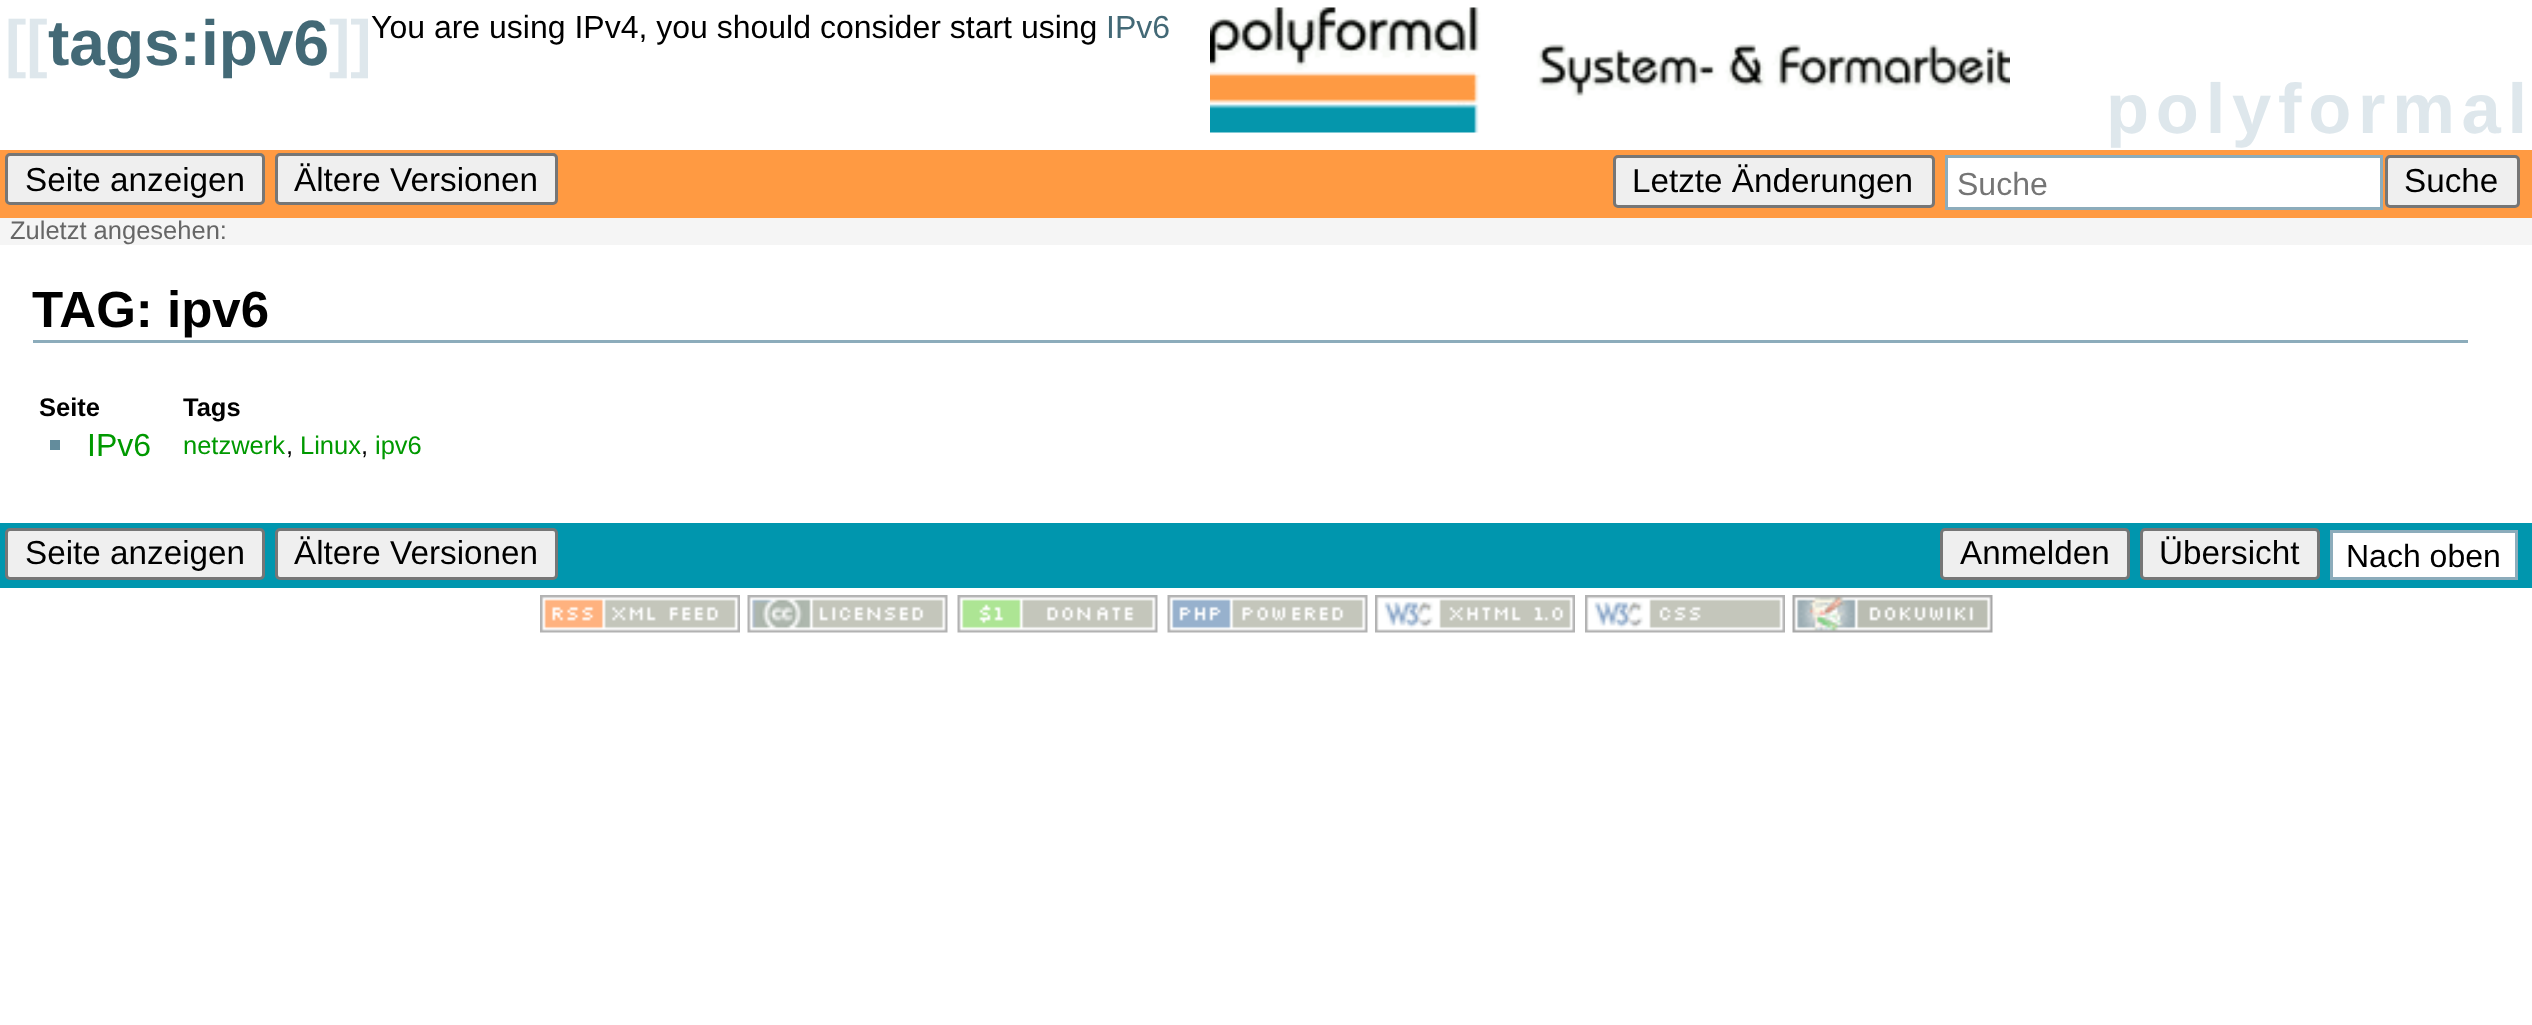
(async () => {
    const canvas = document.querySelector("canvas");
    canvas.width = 2532;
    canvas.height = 1025;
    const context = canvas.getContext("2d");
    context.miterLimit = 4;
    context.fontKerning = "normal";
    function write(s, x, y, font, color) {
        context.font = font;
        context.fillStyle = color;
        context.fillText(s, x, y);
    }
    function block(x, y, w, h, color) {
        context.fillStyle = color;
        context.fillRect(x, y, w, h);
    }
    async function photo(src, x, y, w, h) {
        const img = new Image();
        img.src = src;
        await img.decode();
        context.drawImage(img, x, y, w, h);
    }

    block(0, 0, 2532, 1025, "rgb(255, 255, 255)");
    write("[[", 5, 65, "bold 64px Liberation Sans", "rgb(222, 231, 236)");
    write("tags:ipv6", 48, 65, "bold 64px Liberation Sans", "rgb(67, 105, 118)");
    write("]]", 329, 65, "bold 64px Liberation Sans", "rgb(222, 231, 236)");
    write("You are using IPv4, you should consider start using", 371, 38, "32px Liberation Sans", "rgb(0, 0, 0)");
    write("IPv6", 1106, 38, "32px Liberation Sans", "rgb(67, 105, 118)");
    await photo("media/1.png", 1210, 7, 800, 126);
    context.letterSpacing = "6.75px";
    write("polyformal", 2106, 133, "bold 70.5px Liberation Sans", "rgb(222, 231, 236)");
    block(0, 150, 2532, 68, "rgb(255, 154, 66)");
    context.fillStyle = "rgb(239, 239, 239)";
    context.beginPath();
    context.roundRect(6.5, 154.5, 257, 49, 3.5);
    context.fill();
    context.strokeStyle = "rgb(118, 118, 118)";
    context.lineWidth = 3;
    context.stroke();
    context.letterSpacing = "0px";
    write("Seite anzeigen", 25, 191, "33.25px Liberation Sans", "rgb(0, 0, 0)");
    context.fillStyle = "rgb(239, 239, 239)";
    context.beginPath();
    context.roundRect(276.5, 154.5, 280, 49, 3.5);
    context.fill();
    context.stroke();
    write("Ältere Versionen", 294, 191, "33.25px Liberation Sans", "rgb(0, 0, 0)");
    context.fillStyle = "rgb(239, 239, 239)";
    context.beginPath();
    context.roundRect(1614.5, 156.5, 319, 50, 3.5);
    context.fill();
    context.stroke();
    write("Letzte Änderungen", 1632, 192, "33.25px Liberation Sans", "rgb(0, 0, 0)");
    context.fillStyle = "rgb(255, 255, 255)";
    context.beginPath();
    context.rect(1946.5, 156.5, 435, 52);
    context.fill();
    context.strokeStyle = "rgb(140, 172, 187)";
    context.stroke();
    write("Suche", 1957, 195, "32px Liberation Sans", "rgb(117, 117, 117)");
    context.fillStyle = "rgb(239, 239, 239)";
    context.beginPath();
    context.roundRect(2386.5, 156.5, 132, 50, 3.5);
    context.fill();
    context.strokeStyle = "rgb(118, 118, 118)";
    context.stroke();
    write("Suche", 2404, 192, "33.25px Liberation Sans", "rgb(0, 0, 0)");
    block(0, 218, 2532, 27, "rgb(245, 245, 245)");
    write("Zuletzt angesehen:", 10, 239, "25.5px Liberation Sans", "rgb(102, 102, 102)");
    block(33, 340, 2435, 3, "rgb(140, 172, 187)");
    write("TAG: ipv6", 32, 327, "bold 51px Liberation Sans", "rgb(0, 0, 0)");
    write("Seite", 39, 416, "bold 25.5px Liberation Sans", "rgb(0, 0, 0)");
    write("Tags", 183, 416, "bold 25.5px Liberation Sans", "rgb(0, 0, 0)");
    block(50, 440, 10, 10, "rgb(99, 140, 156)");
    write("IPv6", 87, 456, "32px Liberation Sans", "rgb(0, 153, 0)");
    write("netzwerk", 183, 454, "25.5px Liberation Sans", "rgb(0, 153, 0)");
    write(",", 286, 454, "25.5px Liberation Sans", "rgb(0, 0, 0)");
    write("Linux", 300, 454, "25.5px Liberation Sans", "rgb(0, 153, 0)");
    write(",", 361, 454, "25.5px Liberation Sans", "rgb(0, 0, 0)");
    write("ipv6", 375, 454, "25.5px Liberation Sans", "rgb(0, 153, 0)");
    block(0, 523, 2532, 65, "rgb(0, 150, 174)");
    context.fillStyle = "rgb(239, 239, 239)";
    context.beginPath();
    context.roundRect(6.5, 529.5, 257, 49, 3.5);
    context.fill();
    context.stroke();
    write("Seite anzeigen", 25, 564, "33.25px Liberation Sans", "rgb(0, 0, 0)");
    context.fillStyle = "rgb(239, 239, 239)";
    context.beginPath();
    context.roundRect(276.5, 529.5, 280, 49, 3.5);
    context.fill();
    context.stroke();
    write("Ältere Versionen", 294, 564, "33.25px Liberation Sans", "rgb(0, 0, 0)");
    context.fillStyle = "rgb(239, 239, 239)";
    context.beginPath();
    context.roundRect(1941.5, 529.5, 187, 49, 3.5);
    context.fill();
    context.stroke();
    write("Anmelden", 1960, 564, "33.25px Liberation Sans", "rgb(0, 0, 0)");
    context.fillStyle = "rgb(239, 239, 239)";
    context.beginPath();
    context.roundRect(2141.5, 529.5, 177, 49, 3.5);
    context.fill();
    context.stroke();
    write("Übersicht", 2159, 564, "33.25px Liberation Sans", "rgb(0, 0, 0)");
    context.fillStyle = "rgb(255, 255, 255)";
    context.beginPath();
    context.rect(2331.5, 531.5, 185, 47);
    context.fill();
    context.strokeStyle = "rgb(140, 172, 187)";
    context.stroke();
    write("Nach oben", 2346, 567, "32px Liberation Sans", "rgb(0, 0, 0)");
    await photo("media/2.png", 540, 595, 200, 38);
    await photo("media/3.png", 747, 595, 201, 38);
    await photo("media/4.png", 957, 595, 201, 38);
    await photo("media/5.png", 1167, 595, 201, 38);
    await photo("media/6.png", 1375, 595, 200, 38);
    await photo("media/7.png", 1585, 595, 200, 38);
    await photo("media/8.png", 1792, 595, 201, 38);
})();
